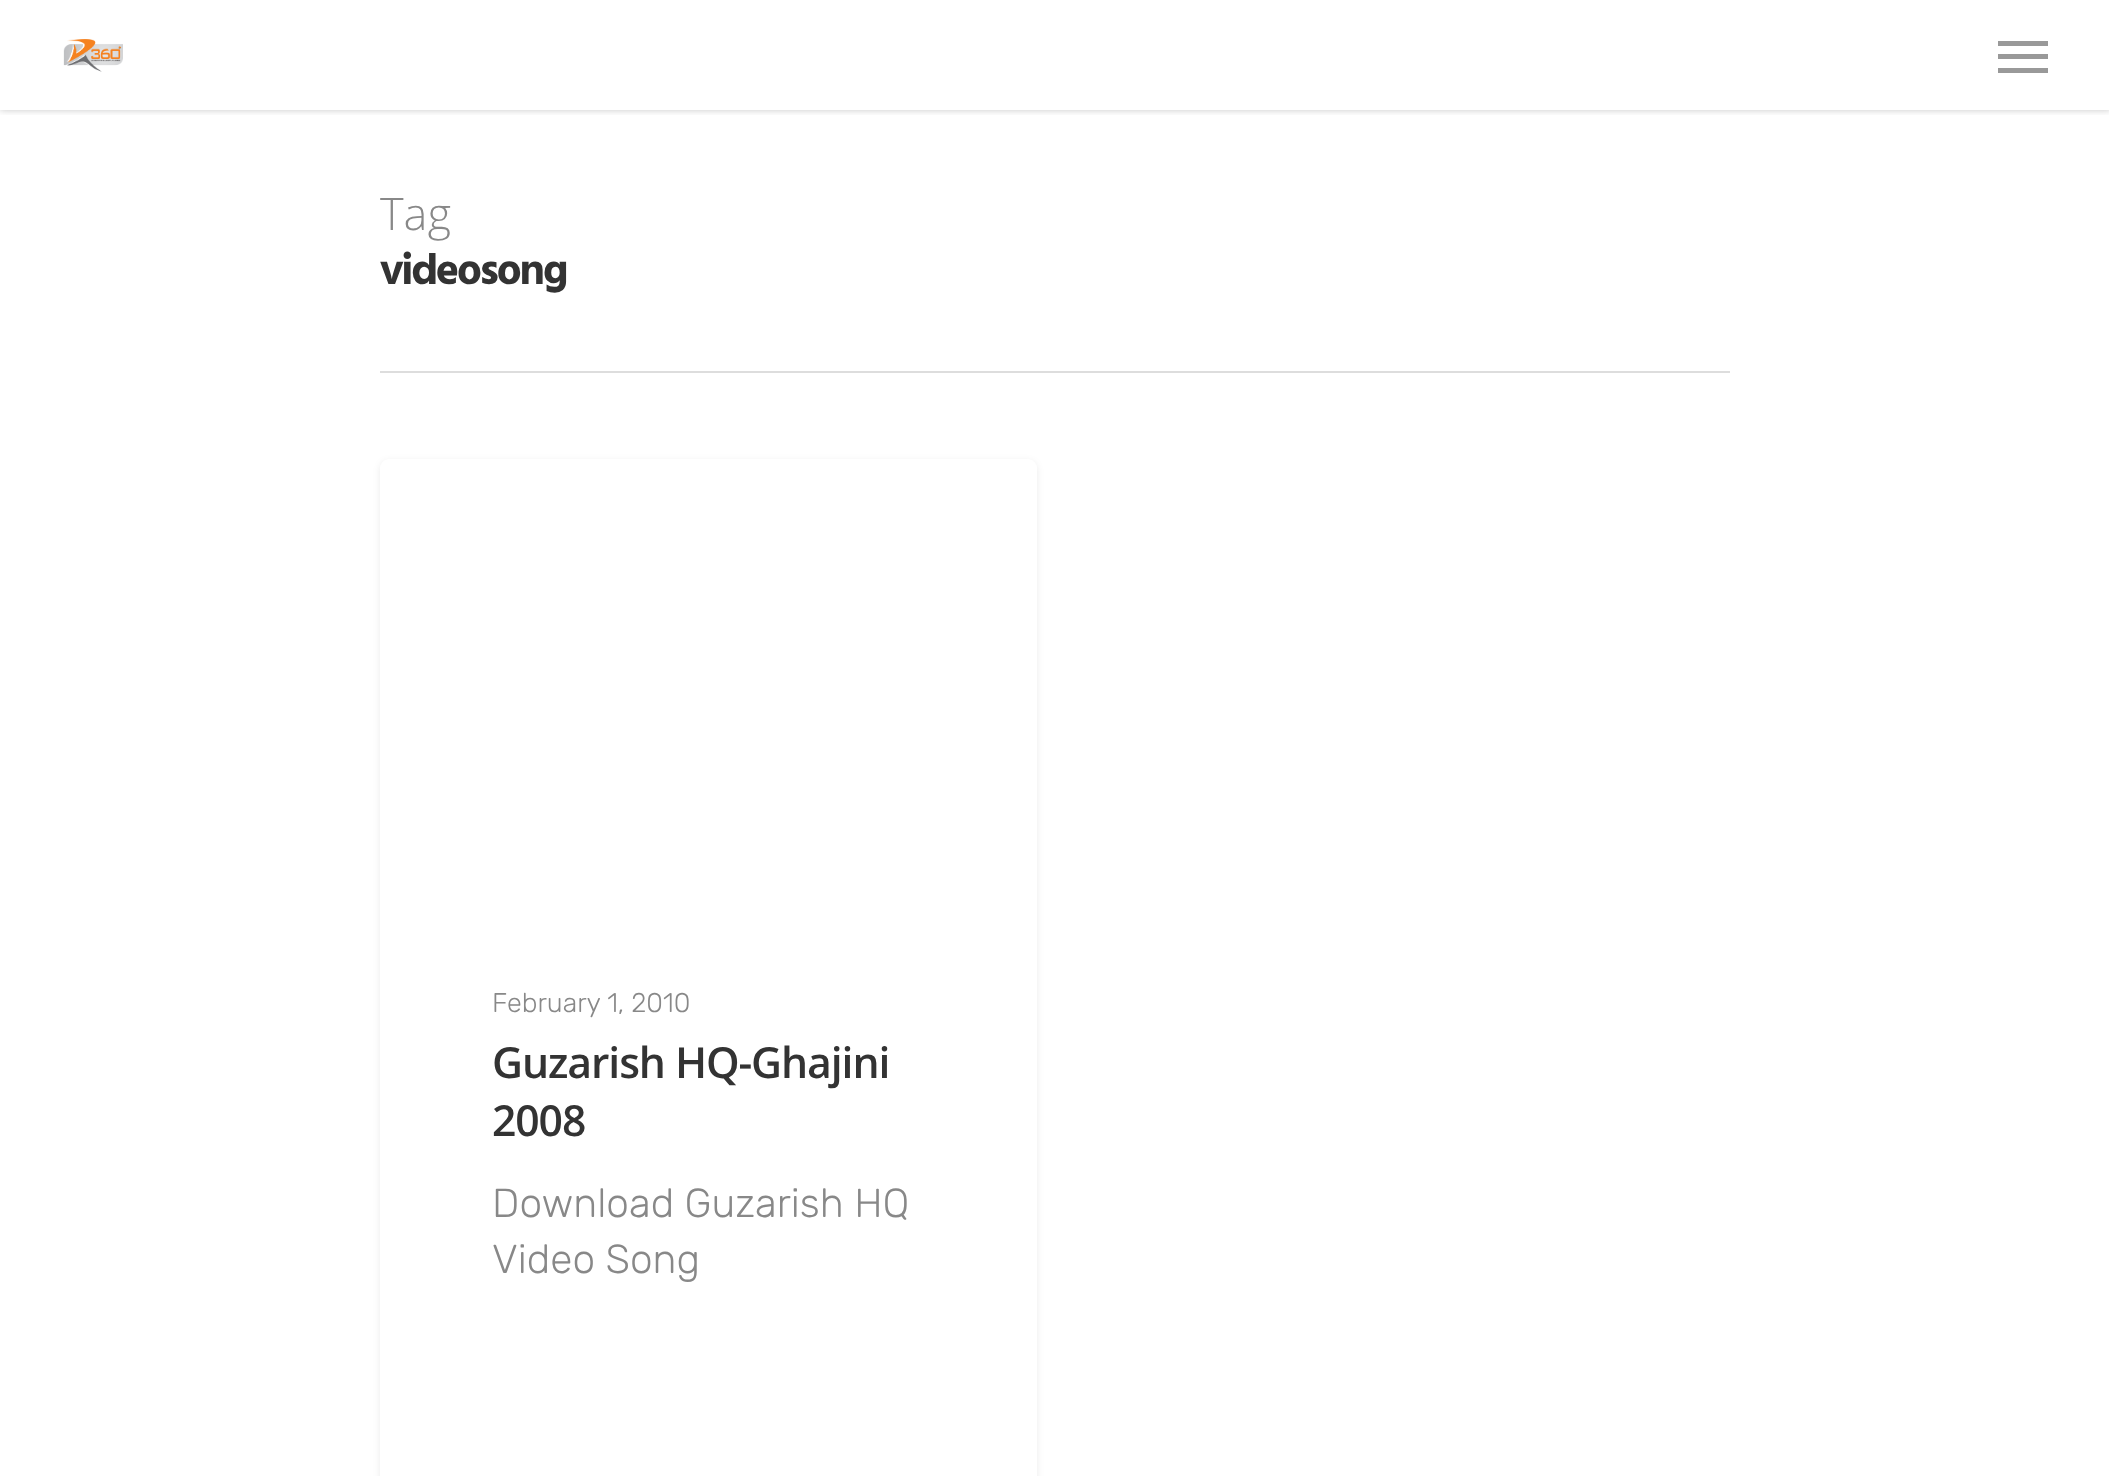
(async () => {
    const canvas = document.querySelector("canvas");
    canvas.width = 2109;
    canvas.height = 1476;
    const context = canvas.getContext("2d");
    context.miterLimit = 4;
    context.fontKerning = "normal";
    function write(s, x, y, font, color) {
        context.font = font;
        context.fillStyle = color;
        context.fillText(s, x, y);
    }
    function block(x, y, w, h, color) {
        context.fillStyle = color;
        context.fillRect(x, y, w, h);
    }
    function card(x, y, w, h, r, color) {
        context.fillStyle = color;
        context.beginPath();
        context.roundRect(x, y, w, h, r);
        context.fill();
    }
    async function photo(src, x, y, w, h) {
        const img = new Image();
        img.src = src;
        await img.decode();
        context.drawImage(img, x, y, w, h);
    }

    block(0, 0, 2109, 1476, "rgb(255, 255, 255)");
    context.save();
    context.beginPath();
    context.rect(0, 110, 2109, 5);
    context.clip();
    context.fillStyle = "rgba(0, 0, 0, 0.22)";
    context.filter = "blur(3.5px)";
    context.beginPath();
    context.rect(0, 0, 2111, 110);
    context.fill();
    context.filter = "none";
    context.restore();
    await photo("media/1.png", 63, 39, 60, 33);
    block(1998, 41, 50, 5, "rgb(153, 153, 153)");
    block(1998, 68, 50, 5, "rgb(153, 153, 153)");
    block(1998, 54, 50, 5, "rgb(153, 153, 153)");
    block(380, 371, 1350, 2, "rgb(221, 221, 221)");
    write("Tag", 380, 230, "300 45px Open Sans", "rgb(136, 136, 136)");
    context.letterSpacing = "-2.25px";
    write("videosong", 380, 284, "bold 44px Hind", "rgb(51, 51, 51)");
    context.fillStyle = "rgba(0, 0, 0, 0.08)";
    context.filter = "blur(3.5px)";
    context.beginPath();
    context.roundRect(380, 461, 657, 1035, 9);
    context.fill();
    context.filter = "none";
    card(380, 459, 657, 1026, 9, "rgb(255, 255, 255)");
    context.letterSpacing = "0px";
    write("February 1, 2010", 492, 1012, "300 27px Rubik", "rgb(136, 136, 136)");
    context.letterSpacing = "-1.1px";
    write("Guzarish HQ-Ghajini", 492, 1078, "600 42.75px Open Sans", "rgb(51, 51, 51)");
    write("2008", 492, 1136, "600 42.75px Open Sans", "rgb(51, 51, 51)");
    context.letterSpacing = "0px";
    write("Download Guzarish HQ", 492, 1217, "300 40.5px Rubik", "rgb(136, 136, 136)");
    write("Video Song", 492, 1273, "300 40.5px Rubik", "rgb(136, 136, 136)");
})();
